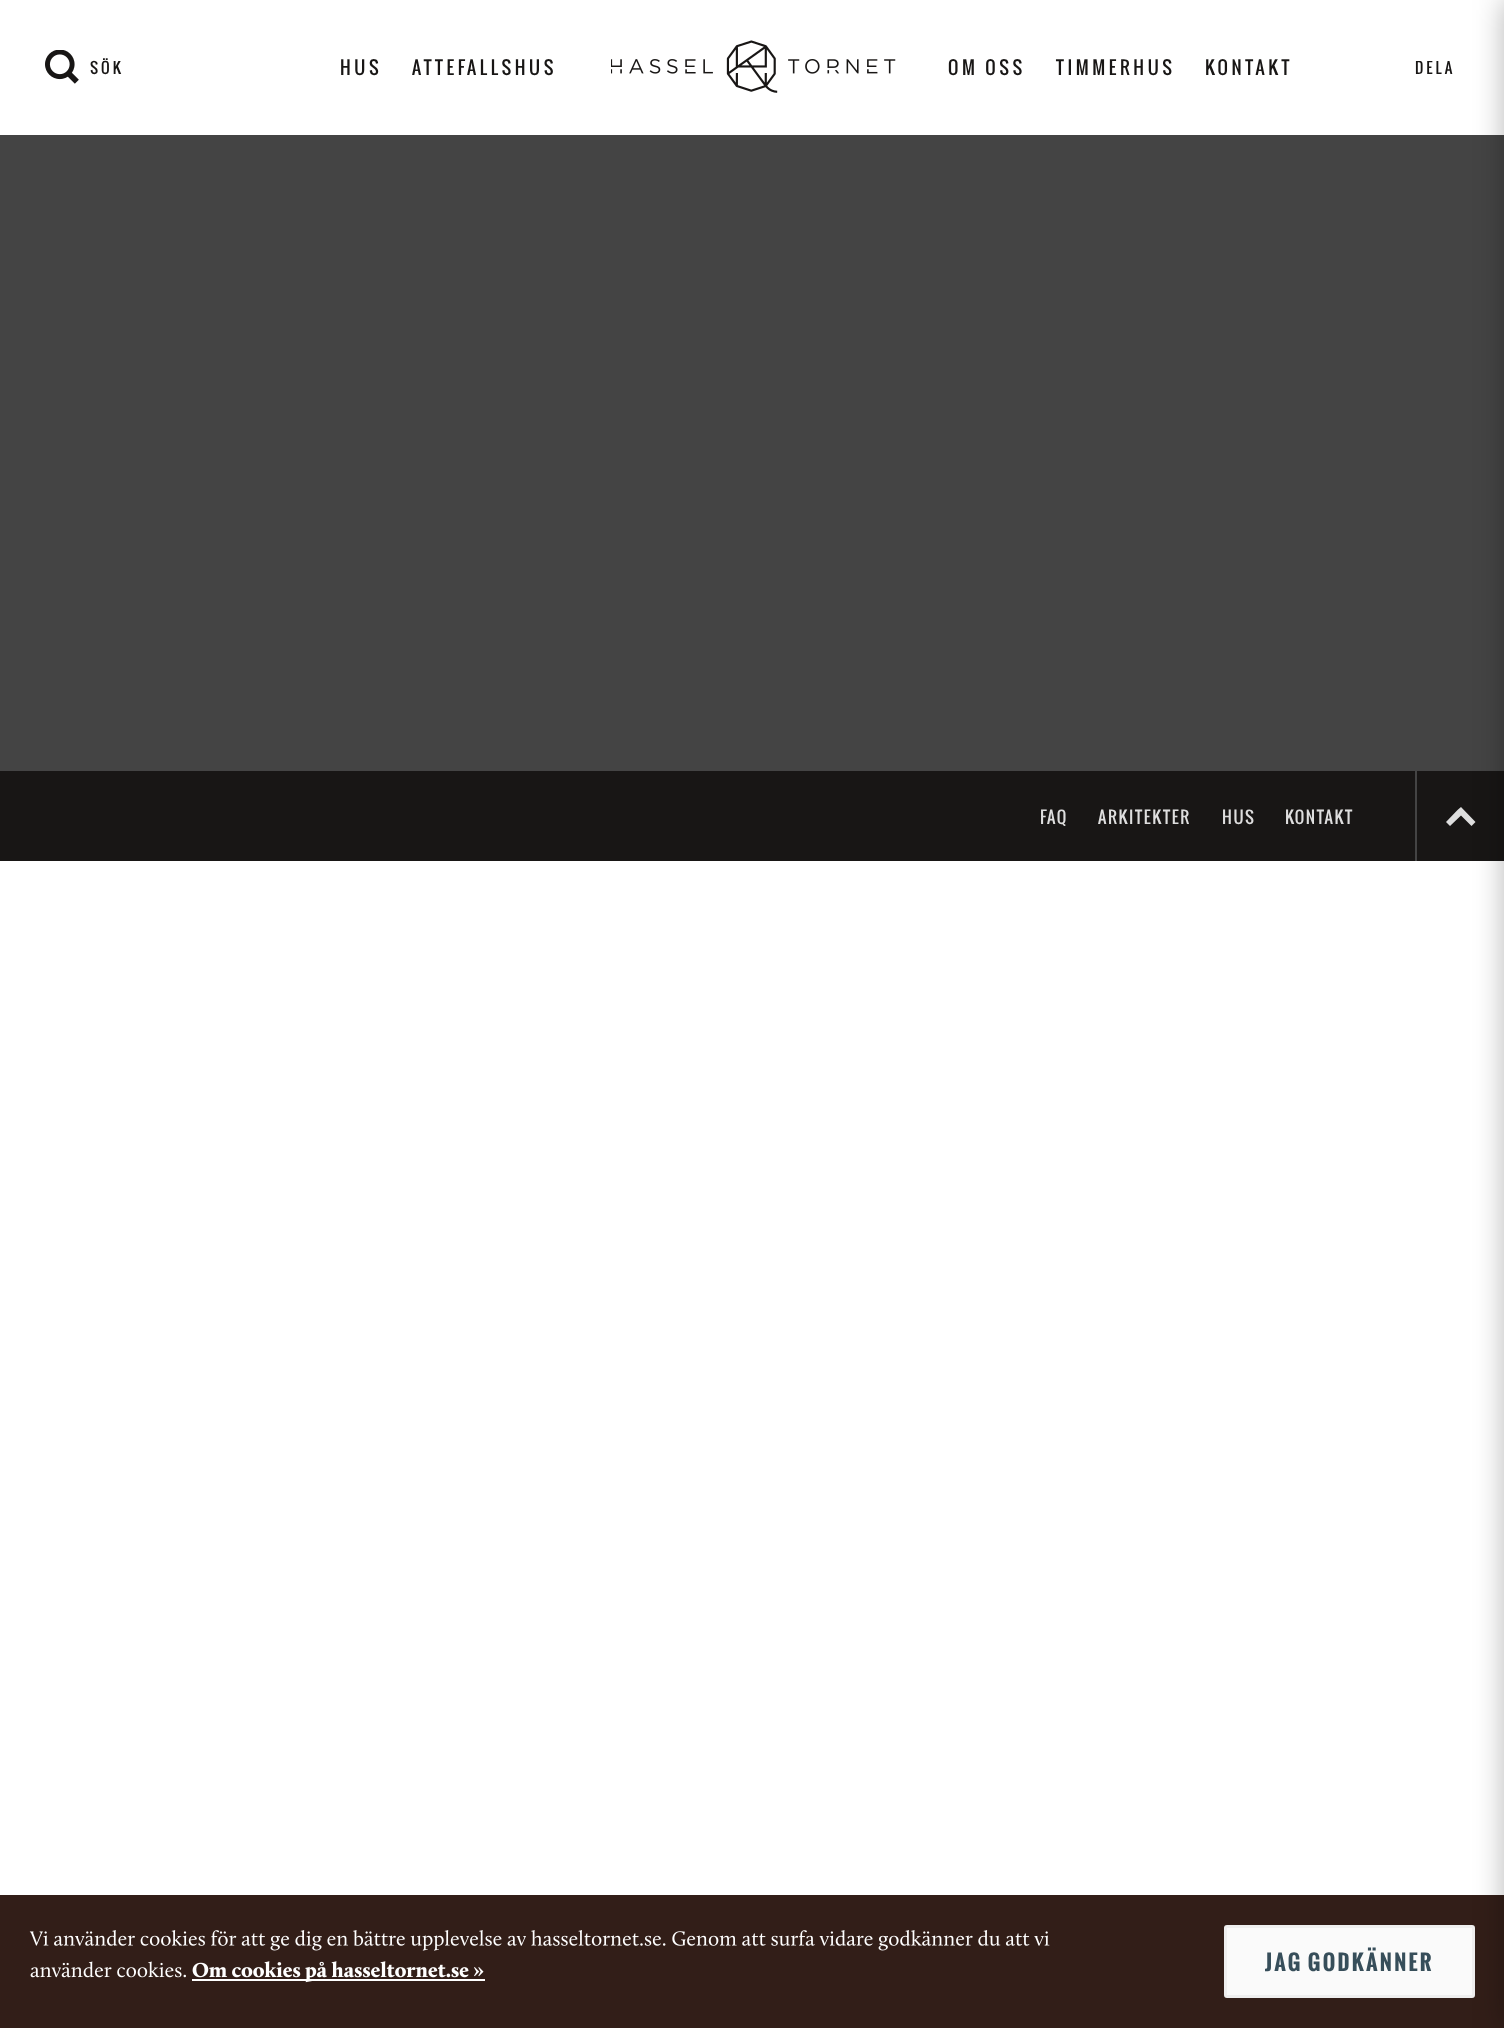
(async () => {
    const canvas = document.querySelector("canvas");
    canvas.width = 1504;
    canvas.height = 2028;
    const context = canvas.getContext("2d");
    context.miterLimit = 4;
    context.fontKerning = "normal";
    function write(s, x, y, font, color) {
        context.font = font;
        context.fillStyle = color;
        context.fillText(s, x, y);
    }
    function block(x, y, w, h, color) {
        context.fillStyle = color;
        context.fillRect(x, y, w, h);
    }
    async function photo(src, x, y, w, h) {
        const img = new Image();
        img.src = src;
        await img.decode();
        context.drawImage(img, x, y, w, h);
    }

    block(0, 0, 1504, 2028, "rgb(255, 255, 255)");
    await photo("media/1.png", 45, 50, 34, 34);
    context.letterSpacing = "3px";
    write("SÖK", 90, 74, "15px Oswald", "rgb(24, 22, 21)");
    context.letterSpacing = "3.6px";
    write("HUS", 340, 75, "18px Oswald", "rgb(24, 22, 21)");
    write("ATTEFALLSHUS", 412, 75, "18px Oswald", "rgb(24, 22, 21)");
    await photo("media/2.png", 611, 40, 285, 53);
    write("OM OSS", 948, 75, "18px Oswald", "rgb(24, 22, 21)");
    write("TIMMERHUS", 1056, 75, "18px Oswald", "rgb(24, 22, 21)");
    write("KONTAKT", 1205, 75, "18px Oswald", "rgb(24, 22, 21)");
    context.letterSpacing = "3px";
    write("DELA", 1415, 74, "15px Oswald", "rgb(24, 22, 21)");
    block(0, 135, 1504, 636, "rgb(68, 68, 68)");
    block(0, 771, 1504, 90, "rgb(24, 22, 21)");
    context.fillStyle = "rgb(222, 222, 222)";
    context.beginPath();
    context.moveTo(1457.5, 810);
    context.lineTo(1461, 807);
    context.lineTo(1475.5, 822);
    context.lineTo(1471.5, 826);
    context.lineTo(1461, 815.5);
    context.lineTo(1450, 826);
    context.lineTo(1446, 822);
    context.closePath();
    context.fill("evenodd");
    block(0, 1895, 1504, 133, "rgb(50, 30, 24)");
    context.fillStyle = "rgb(250, 250, 250)";
    context.beginPath();
    context.roundRect(1225.5, 1926.5, 248, 70, 1.5);
    context.fill();
    context.strokeStyle = "rgb(239, 239, 239)";
    context.lineWidth = 3;
    context.stroke();
    context.fillStyle = "rgba(0, 0, 0, 0.3)";
    context.filter = "blur(15px)";
    context.beginPath();
    context.rect(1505, 0, 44, 2028);
    context.fill();
    context.filter = "none";
    context.letterSpacing = "1.6px";
    write("FAQ", 1040, 824, "16.5px Oswald", "rgb(222, 222, 222)");
    write("ARKITEKTER", 1098, 824, "16.5px Oswald", "rgb(222, 222, 222)");
    write("HUS", 1222, 824, "16.5px Oswald", "rgb(222, 222, 222)");
    write("KONTAKT", 1285, 824, "16.5px Oswald", "rgb(222, 222, 222)");
    block(1415, 771, 2, 90, "rgb(68, 68, 68)");
    await photo("media/3.png", 29, 1930, 1021, 21);
    await photo("media/4.png", 30, 1961, 156, 17);
    block(192, 1979, 293, 2, "rgb(255, 255, 255)");
    await photo("media/5.png", 192, 1961, 292, 22);
    context.letterSpacing = "2.25px";
    write("JAG GODKÄNNER", 1265, 1971, "bold 21px Oswald", "rgb(55, 78, 90)");
})();
